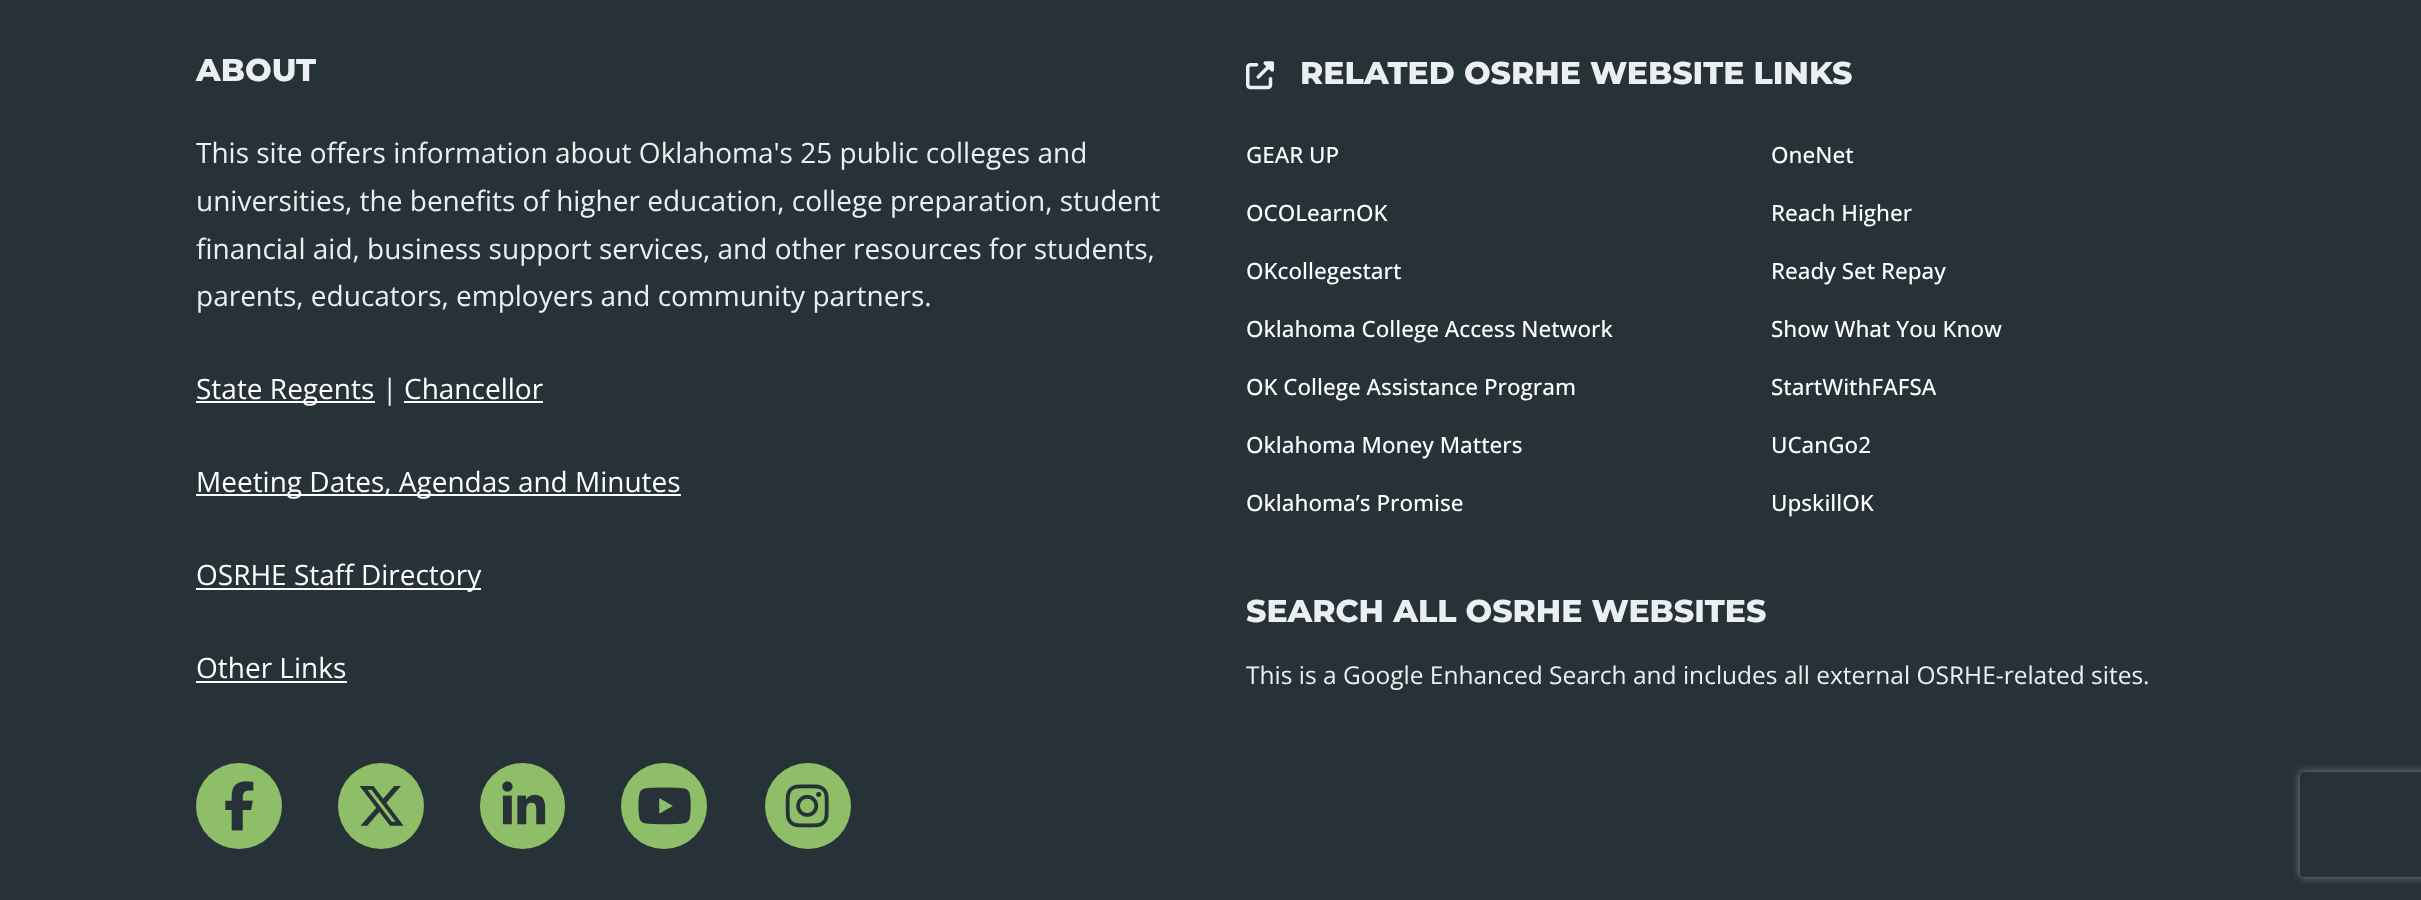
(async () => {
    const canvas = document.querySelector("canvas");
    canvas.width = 2421;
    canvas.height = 900;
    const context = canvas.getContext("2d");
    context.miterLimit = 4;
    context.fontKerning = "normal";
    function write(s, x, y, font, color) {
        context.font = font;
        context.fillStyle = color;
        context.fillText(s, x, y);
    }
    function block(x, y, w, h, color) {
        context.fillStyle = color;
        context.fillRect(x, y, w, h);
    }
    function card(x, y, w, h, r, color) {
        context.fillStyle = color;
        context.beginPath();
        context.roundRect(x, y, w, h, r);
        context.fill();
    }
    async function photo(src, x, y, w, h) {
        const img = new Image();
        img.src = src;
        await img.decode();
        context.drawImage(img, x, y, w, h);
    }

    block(0, 0, 2421, 900, "rgb(38, 50, 56)");
    write("ABOUT", 196, 81, "800 31.5px Montserrat", "rgb(236, 239, 241)");
    write("This site offers information about Oklahoma's 25 public colleges and", 196, 163, "28px Open Sans", "rgb(236, 239, 241)");
    write("universities, the benefits of higher education, college preparation, student", 196, 211, "28px Open Sans", "rgb(236, 239, 241)");
    write("financial aid, business support services, and other resources for students,", 196, 259, "28px Open Sans", "rgb(236, 239, 241)");
    write("parents, educators, employers and community partners.", 196, 306, "28px Open Sans", "rgb(236, 239, 241)");
    block(196, 401, 179, 2, "rgb(255, 255, 255)");
    write("State Regents", 196, 399, "28px Open Sans", "rgb(255, 255, 255)");
    write("|", 382, 399, "28px Open Sans", "rgb(236, 239, 241)");
    write("Chancellor", 404, 399, "28px Open Sans", "rgb(255, 255, 255)");
    block(404, 401, 139, 2, "rgb(255, 255, 255)");
    block(196, 494, 485, 2, "rgb(255, 255, 255)");
    write("Meeting Dates, Agendas and Minutes", 196, 492, "28px Open Sans", "rgb(255, 255, 255)");
    block(196, 588, 285, 2, "rgb(255, 255, 255)");
    write("OSRHE Staff Directory", 196, 585, "28px Open Sans", "rgb(255, 255, 255)");
    write("Other Links", 196, 678, "28px Open Sans", "rgb(255, 255, 255)");
    block(196, 681, 151, 2, "rgb(255, 255, 255)");
    context.fillStyle = "rgb(142, 191, 104)";
    context.beginPath();
    context.arc(239, 806, 43, 0, Math.PI * 2);
    context.fill();
    await photo("media/1.png", 225, 781, 29, 50);
    context.beginPath();
    context.arc(381, 806, 43, 0, Math.PI * 2);
    context.fill();
    await photo("media/2.png", 359, 786, 45, 40);
    card(480, 763, 85, 86, 42.5, "rgb(142, 191, 104)");
    await photo("media/3.png", 502, 781, 44, 44);
    context.beginPath();
    context.arc(664, 806, 43, 0, Math.PI * 2);
    context.fill();
    await photo("media/4.png", 638, 787, 53, 38);
    context.beginPath();
    context.arc(808, 806, 43, 0, Math.PI * 2);
    context.fill();
    await photo("media/5.png", 785, 784, 44, 44);
    await photo("media/6.png", 1246, 61, 28, 29);
    write("RELATED OSRHE WEBSITE LINKS", 1300, 84, "800 31.5px Montserrat", "rgb(236, 239, 241)");
    write("GEAR UP", 1246, 163, "500 22.4px Open Sans", "rgb(255, 255, 255)");
    write("OCOLearnOK", 1246, 221, "500 22.4px Open Sans", "rgb(255, 255, 255)");
    write("OKcollegestart", 1246, 279, "500 22.4px Open Sans", "rgb(255, 255, 255)");
    write("Oklahoma College Access Network", 1246, 337, "500 22.4px Open Sans", "rgb(255, 255, 255)");
    write("OK College Assistance Program", 1246, 395, "500 22.4px Open Sans", "rgb(255, 255, 255)");
    write("Oklahoma Money Matters", 1246, 453, "500 22.4px Open Sans", "rgb(255, 255, 255)");
    write("Oklahoma’s Promise", 1246, 511, "500 22.4px Open Sans", "rgb(255, 255, 255)");
    write("OneNet", 1771, 163, "500 22.4px Open Sans", "rgb(255, 255, 255)");
    write("Reach Higher", 1771, 221, "500 22.4px Open Sans", "rgb(255, 255, 255)");
    write("Ready Set Repay", 1771, 279, "500 22.4px Open Sans", "rgb(255, 255, 255)");
    write("Show What You Know", 1771, 337, "500 22.4px Open Sans", "rgb(255, 255, 255)");
    write("StartWithFAFSA", 1771, 395, "500 22.4px Open Sans", "rgb(255, 255, 255)");
    write("UCanGo2", 1771, 453, "500 22.4px Open Sans", "rgb(255, 255, 255)");
    write("UpskillOK", 1771, 511, "500 22.4px Open Sans", "rgb(255, 255, 255)");
    write("SEARCH ALL OSRHE WEBSITES", 1246, 622, "800 31.5px Montserrat", "rgb(236, 239, 241)");
    write("This is a Google Enhanced Search and includes all external OSRHE-related sites.", 1246, 684, "24.5px Open Sans", "rgb(236, 239, 241)");
    context.save();
    context.beginPath();
    context.moveTo(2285, 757);
    context.lineTo(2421, 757);
    context.lineTo(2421, 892);
    context.lineTo(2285, 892);
    context.closePath();
    context.moveTo(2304, 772);
    context.lineTo(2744, 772);
    context.bezierCurveTo(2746, 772, 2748, 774, 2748, 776);
    context.lineTo(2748, 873);
    context.bezierCurveTo(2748, 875, 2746, 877, 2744, 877);
    context.lineTo(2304, 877);
    context.bezierCurveTo(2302, 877, 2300, 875, 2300, 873);
    context.lineTo(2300, 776);
    context.bezierCurveTo(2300, 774, 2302, 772, 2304, 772);
    context.closePath();
    context.clip("evenodd");
    context.fillStyle = "rgb(128, 128, 128)";
    context.filter = "blur(4.5px)";
    context.beginPath();
    context.roundRect(2300, 772, 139, 105, 4);
    context.fill();
    context.filter = "none";
    context.restore();
})();
